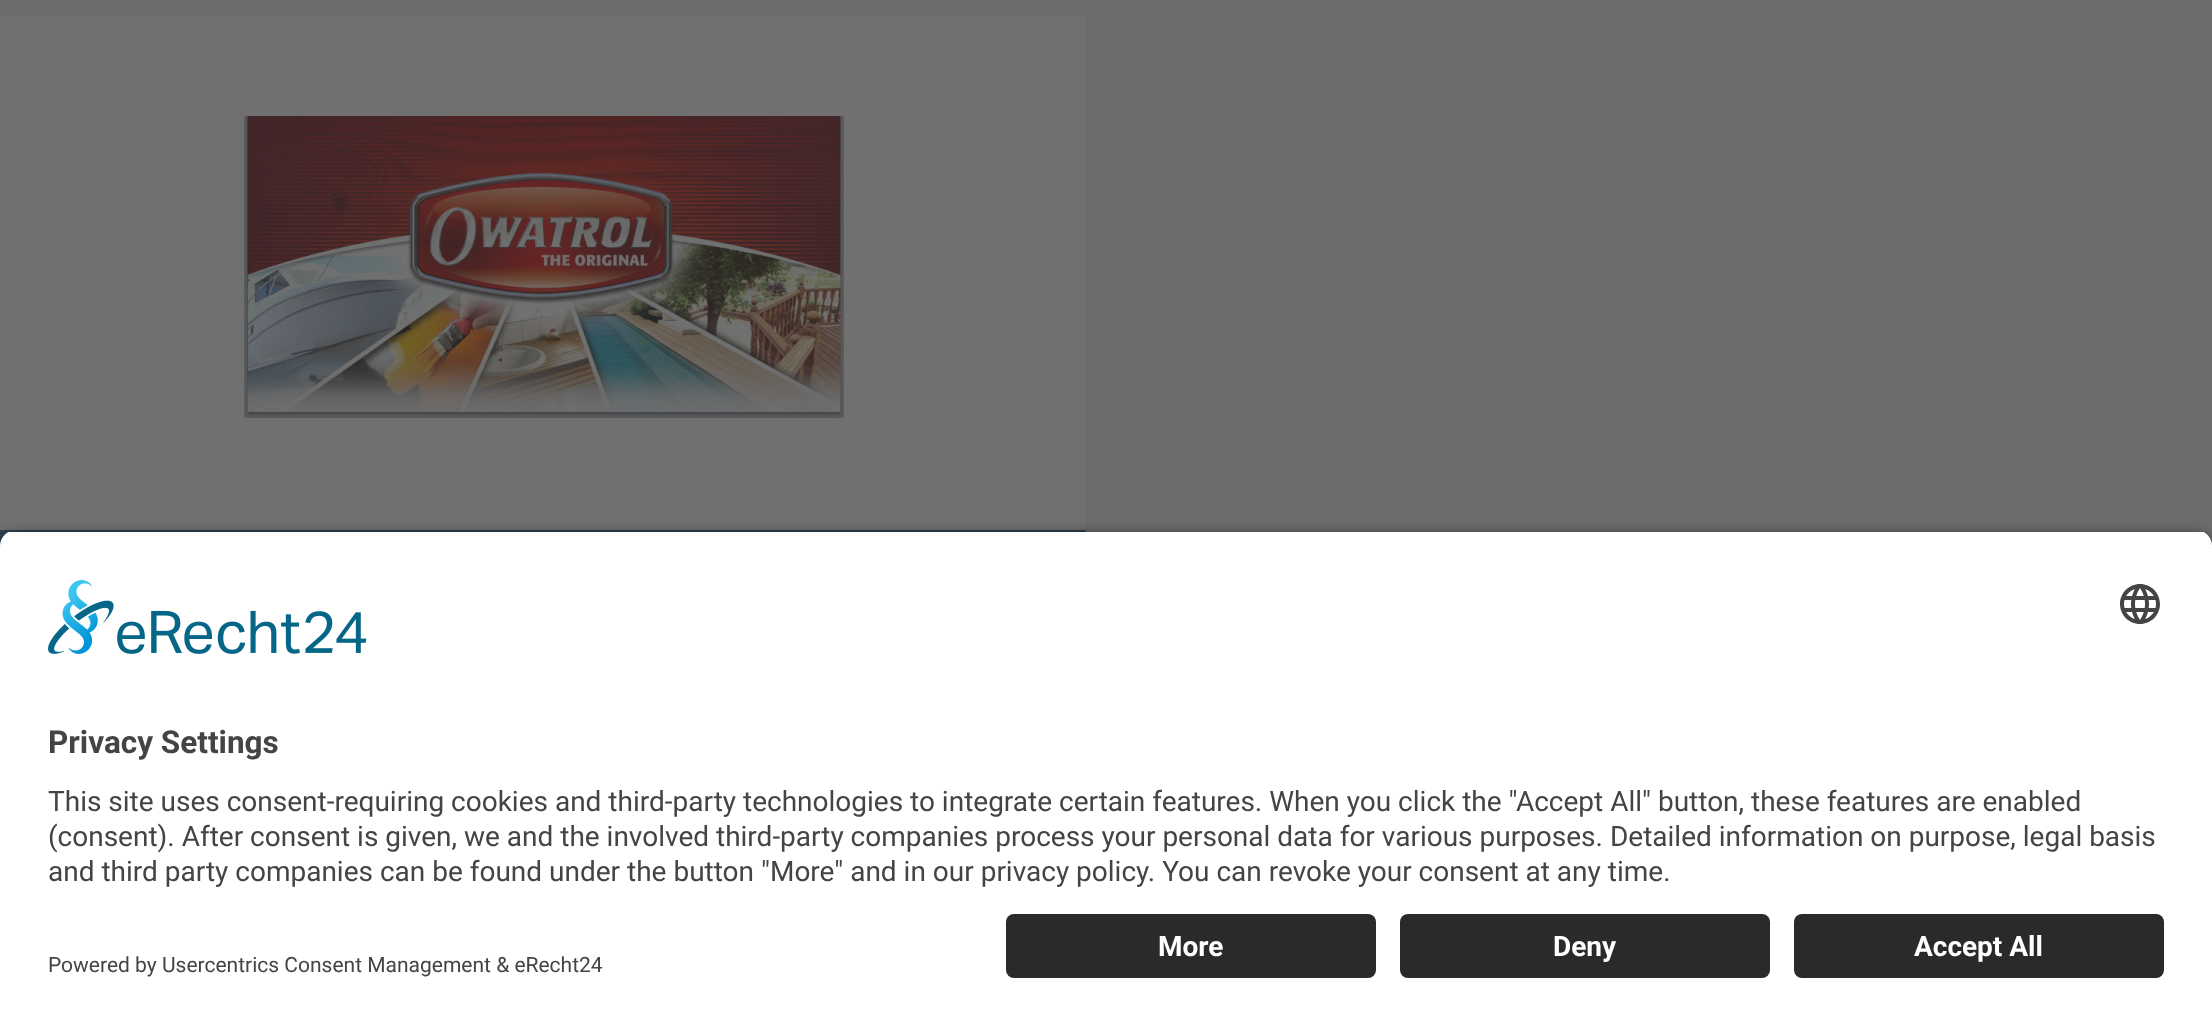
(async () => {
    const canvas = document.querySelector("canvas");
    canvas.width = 2212;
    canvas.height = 1026;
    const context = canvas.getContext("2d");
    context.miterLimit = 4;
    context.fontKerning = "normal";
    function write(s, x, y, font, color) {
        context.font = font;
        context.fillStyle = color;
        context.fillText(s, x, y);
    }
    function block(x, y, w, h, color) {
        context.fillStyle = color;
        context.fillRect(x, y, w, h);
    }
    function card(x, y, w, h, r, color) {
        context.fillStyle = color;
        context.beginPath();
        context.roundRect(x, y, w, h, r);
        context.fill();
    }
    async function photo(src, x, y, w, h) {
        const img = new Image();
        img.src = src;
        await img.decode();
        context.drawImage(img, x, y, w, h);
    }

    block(0, 0, 2212, 1026, "rgb(106, 108, 109)");
    block(0, 16, 1086, 514, "rgb(112, 112, 112)");
    await photo("media/1.png", 244, 116, 600, 302);
    block(0, 530, 1086, 16, "rgb(47, 66, 82)");
    context.fillStyle = "rgba(0, 0, 0, 0.8)";
    context.filter = "blur(7px)";
    context.beginPath();
    context.roundRect(0, 536, 2212, 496, 16);
    context.fill();
    context.filter = "none";
    context.save();
    context.beginPath();
    context.roundRect(0, 530, 2212, 368, [16, 16, 0, 0]);
    context.clip();
    block(0, 532, 2212, 366, "rgb(255, 255, 255)");
    context.restore();
    await photo("media/2.png", 48, 580, 319, 74);
    await photo("media/3.png", 2120, 584, 40, 40);
    write("Privacy Settings", 48, 753, "bold 31.5px Roboto", "rgb(68, 68, 68)");
    write("This site uses consent-requiring cookies and third-party technologies to integrate certain features. When you click the \"Accept All\" button, these features are enabled", 48, 811, "28px Roboto", "rgb(68, 68, 68)");
    write("(consent). After consent is given, we and the involved third-party companies process your personal data for various purposes. Detailed information on purpose, legal basis", 48, 846, "28px Roboto", "rgb(68, 68, 68)");
    write("and third party companies can be found under the button \"More\" and in our privacy policy. You can revoke your consent at any time.", 48, 881, "28px Roboto", "rgb(68, 68, 68)");
    block(0, 898, 2212, 128, "rgb(255, 255, 255)");
    card(1006, 914, 370, 64, 8, "rgb(41, 42, 43)");
    write("More", 1158, 956, "bold 28px Roboto", "rgb(255, 255, 255)");
    card(1400, 914, 370, 64, 8, "rgb(41, 42, 43)");
    write("Deny", 1553, 956, "bold 28px Roboto", "rgb(255, 255, 255)");
    card(1794, 914, 370, 64, 8, "rgb(41, 42, 43)");
    write("Accept All", 1914, 956, "bold 28px Roboto", "rgb(255, 255, 255)");
    write("Powered by Usercentrics Consent Management & eRecht24", 48, 972, "21px Roboto", "rgb(68, 68, 68)");
})();
